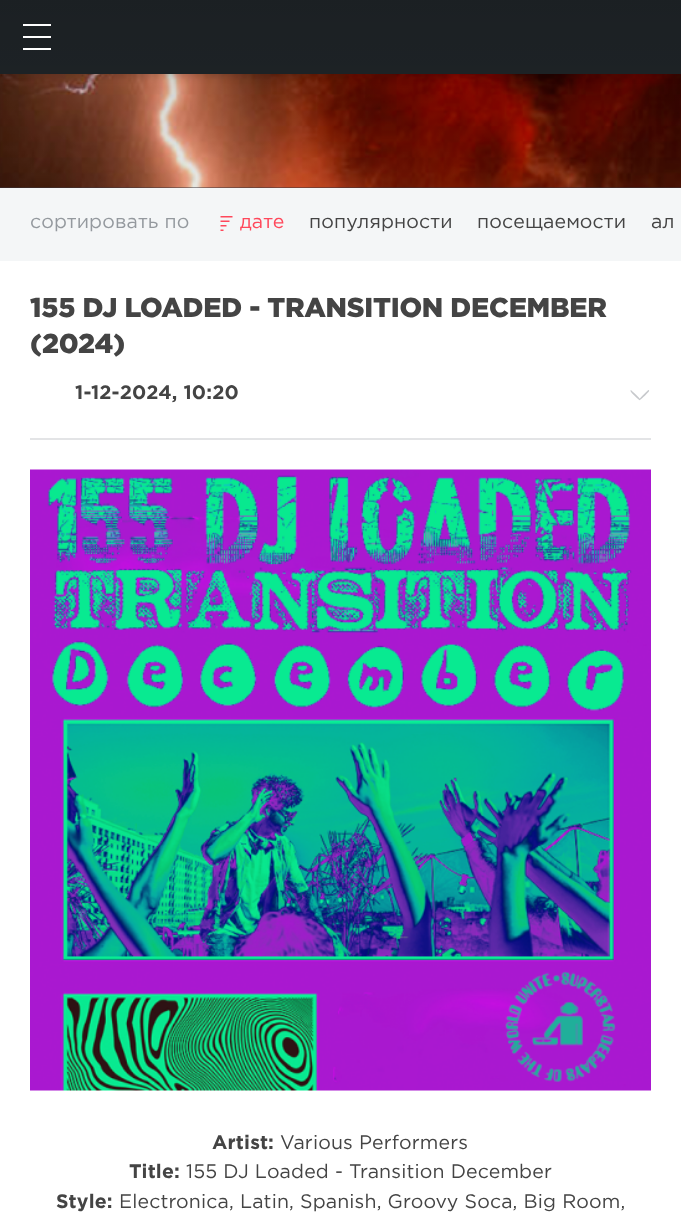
(async () => {
    const canvas = document.querySelector("canvas");
    canvas.width = 681;
    canvas.height = 1223;
    const context = canvas.getContext("2d");
    context.miterLimit = 4;
    context.fontKerning = "normal";
    function write(s, x, y, font, color) {
        context.font = font;
        context.fillStyle = color;
        context.fillText(s, x, y);
    }
    function block(x, y, w, h, color) {
        context.fillStyle = color;
        context.fillRect(x, y, w, h);
    }
    async function photo(src, x, y, w, h) {
        const img = new Image();
        img.src = src;
        await img.decode();
        context.drawImage(img, x, y, w, h);
    }
    let gradient;

    block(0, 0, 681, 1223, "rgb(255, 255, 255)");
    block(0, 187, 681, 1, "rgb(64, 58, 67)");
    await photo("media/1.png", 0, 74, 681, 114);
    context.fillStyle = "rgba(0, 0, 0, 0.2)";
    context.filter = "blur(4px)";
    context.beginPath();
    context.rect(0, 2, 681, 73);
    context.fill();
    context.filter = "none";
    block(0, 0, 681, 74, "rgb(34, 40, 44)");
    gradient = context.createLinearGradient(341, 0, 341, 345);
    gradient.addColorStop(0, "rgba(0, 0, 0, 0.2)");
    gradient.addColorStop(1, "rgba(0, 0, 0, 0)");
    context.fillStyle = gradient;
    context.fillRect(0, 0, 681, 188);
    block(23, 24, 28, 2, "rgb(255, 255, 255)");
    block(23, 36, 28, 2, "rgb(255, 255, 255)");
    block(23, 48, 28, 2, "rgb(255, 255, 255)");
    block(0, 188, 681, 73, "rgb(244, 246, 247)");
    context.letterSpacing = "0.15px";
    write("сортировать по", 30, 228, "19.5px Gotham", "rgb(148, 153, 158)");
    await photo("media/2.png", 220, 216, 13, 15);
    write("дате", 240, 228, "19.5px Gotham", "rgb(255, 72, 91)");
    write("популярности", 309, 228, "19.5px Gotham", "rgb(68, 68, 68)");
    write("посещаемости", 477, 228, "19.5px Gotham", "rgb(68, 68, 68)");
    write("ал", 651, 228, "19.5px Gotham", "rgb(68, 68, 68)");
    context.letterSpacing = "-0.25px";
    write("155 DJ LOADED - TRANSITION DECEMBER", 30, 317, "900 27.3px Gotham", "rgb(68, 68, 68)");
    write("(2024)", 30, 353, "900 27.3px Gotham", "rgb(68, 68, 68)");
    block(30, 438, 621, 2, "rgb(227, 228, 230)");
    context.letterSpacing = "0.15px";
    write("1-12-2024, 10:20", 75, 399, "bold 19.5px Gotham", "rgb(68, 68, 68)");
    context.fillStyle = "rgb(199, 201, 204)";
    context.beginPath();
    context.moveTo(631.5, 390.5);
    context.bezierCurveTo(632.5, 391.5, 640.5, 398.5, 640, 399.5);
    context.bezierCurveTo(640, 401, 638.5, 399.5, 637.5, 398.5);
    context.bezierCurveTo(636.5, 397.5, 629.5, 391.5, 630.5, 390.5);
    context.bezierCurveTo(630.5, 390, 631, 390, 631.5, 390.5);
    context.closePath();
    context.fill();
    context.beginPath();
    context.moveTo(639.5, 399);
    context.bezierCurveTo(640.5, 397.5, 648, 390, 648.5, 390);
    context.bezierCurveTo(650, 390.5, 648.5, 392, 647.5, 393);
    context.bezierCurveTo(646.5, 394, 640.5, 400.5, 639.5, 400);
    context.bezierCurveTo(639, 399.5, 639, 399, 639.5, 399);
    context.closePath();
    context.fill();
    await photo("media/3.png", 30, 469, 621, 622);
    write("Artist:", 212, 1149, "bold 19.5px Gotham", "rgb(68, 68, 68)");
    write("Various Performers", 280, 1149, "19.5px Gotham", "rgb(68, 68, 68)");
    write("Title:", 129, 1178, "bold 19.5px Gotham", "rgb(68, 68, 68)");
    write("155 DJ Loaded - Transition December", 186, 1178, "19.5px Gotham", "rgb(68, 68, 68)");
    write("Style:", 56, 1208, "bold 19.5px Gotham", "rgb(68, 68, 68)");
    write("Electronica, Latin, Spanish, Groovy Soca, Big Room,", 119, 1208, "19.5px Gotham", "rgb(68, 68, 68)");
})();
